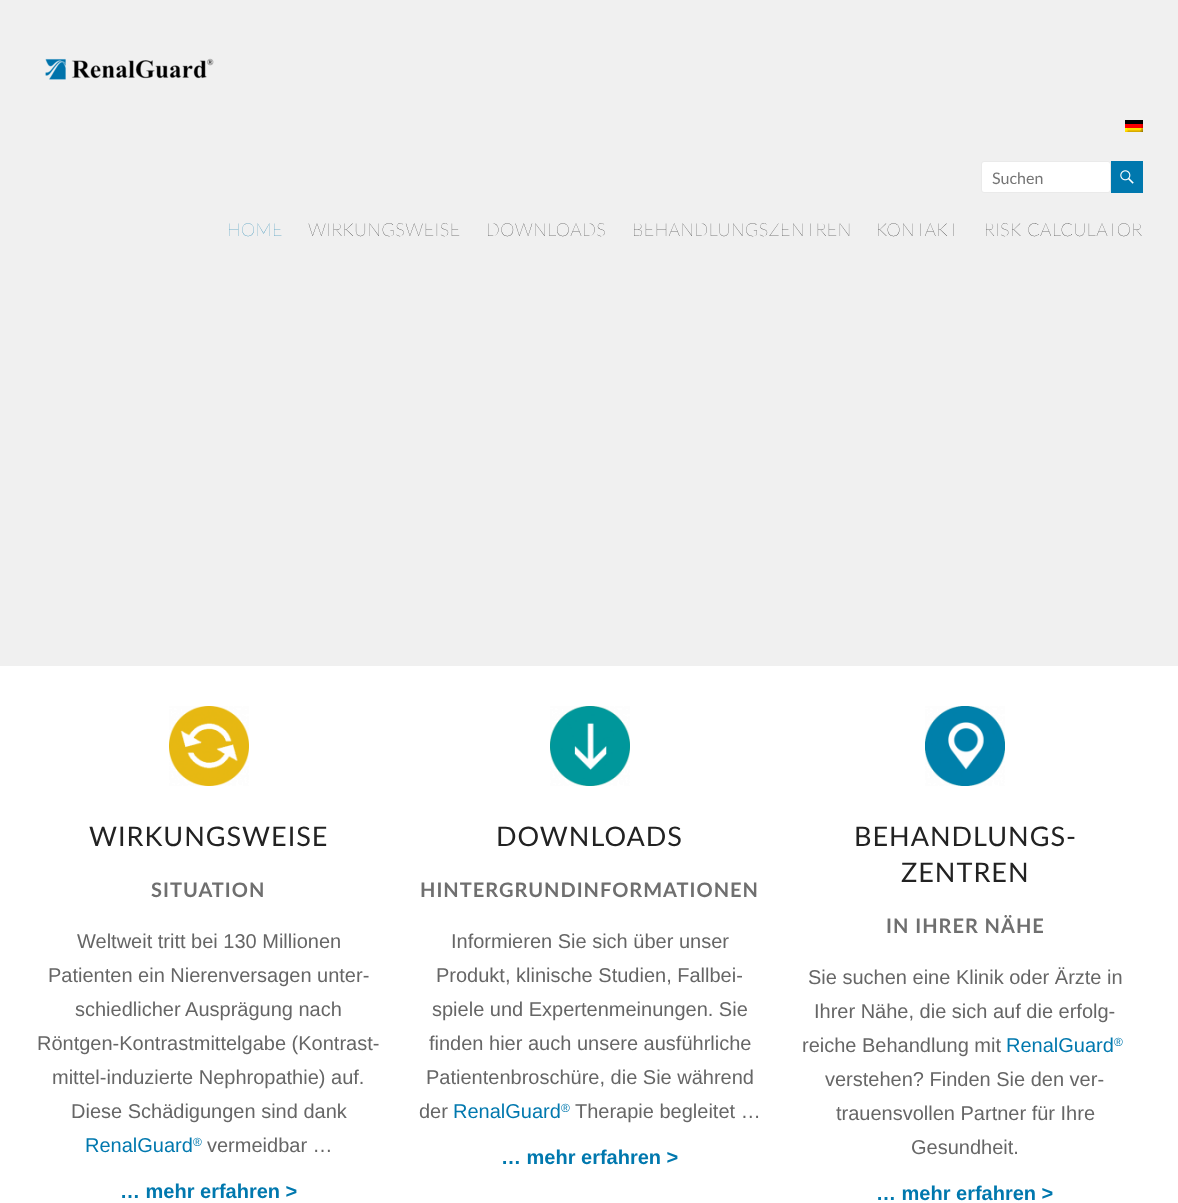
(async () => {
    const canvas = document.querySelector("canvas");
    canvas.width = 1178;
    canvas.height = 1203;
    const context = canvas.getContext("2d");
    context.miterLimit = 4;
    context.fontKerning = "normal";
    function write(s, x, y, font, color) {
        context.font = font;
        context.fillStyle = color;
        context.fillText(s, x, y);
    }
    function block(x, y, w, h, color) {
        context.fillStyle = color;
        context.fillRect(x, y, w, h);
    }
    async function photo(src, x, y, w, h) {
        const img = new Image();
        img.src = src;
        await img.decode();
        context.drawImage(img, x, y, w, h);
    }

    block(0, 0, 1178, 1203, "rgb(255, 255, 255)");
    block(0, 0, 1178, 666, "rgb(240, 240, 240)");
    await photo("media/1.png", 45, 58, 169, 22);
    await photo("media/2.png", 1125, 120, 18, 12);
    context.fillStyle = "rgb(255, 255, 255)";
    context.beginPath();
    context.roundRect(981.5, 161.5, 129, 31, 2.5);
    context.fill();
    context.strokeStyle = "rgb(234, 234, 234)";
    context.stroke();
    write("Suchen", 992, 184, "16px Lato", "rgb(117, 117, 117)");
    block(1111, 161, 32, 32, "rgb(0, 120, 174)");
    await photo("media/3.png", 1120, 170, 14, 14);
    context.letterSpacing = "0.5px";
    write("HOME", 227, 236, "200 18px Lato", "rgb(0, 118, 168)");
    write("WIRKUNGSWEISE", 308, 236, "200 18px Lato", "rgb(0, 0, 0)");
    write("DOWNLOADS", 486, 236, "200 18px Lato", "rgb(0, 0, 0)");
    write("BEHANDLUNGSZENTREN", 632, 236, "200 18px Lato", "rgb(0, 0, 0)");
    write("KONTAKT", 876, 236, "200 18px Lato", "rgb(0, 0, 0)");
    write("RISK CALCULATOR", 984, 236, "200 18px Lato", "rgb(0, 0, 0)");
    await photo("media/4.png", 169, 706, 80, 80);
    context.letterSpacing = "1px";
    write("WIRKUNGSWEISE", 89, 846, "27px Lato", "rgb(34, 34, 34)");
    write("SITUATION", 151, 897, "bold 20px Lato", "rgb(111, 111, 111)");
    context.letterSpacing = "0px";
    write("Weltweit tritt bei 130 Millionen", 77, 948, "20px Liberation Sans", "rgb(102, 102, 102)");
    write("Patienten ein Nierenversagen unter-", 48, 982, "20px Liberation Sans", "rgb(102, 102, 102)");
    write("schiedlicher Ausprägung nach", 75, 1016, "20px Liberation Sans", "rgb(102, 102, 102)");
    write("Röntgen-Kontrastmittelgabe (Kontrast-", 37, 1050, "20px Liberation Sans", "rgb(102, 102, 102)");
    write("mittel-induzierte Nephropathie) auf.", 52, 1084, "20px Liberation Sans", "rgb(102, 102, 102)");
    write("Diese Schädigungen sind dank", 71, 1118, "20px Liberation Sans", "rgb(102, 102, 102)");
    write("RenalGuard", 85, 1152, "20px Liberation Sans", "rgb(0, 120, 174)");
    write("®", 193, 1146, "12px Liberation Sans", "rgb(0, 120, 174)");
    write("vermeidbar …", 207, 1152, "20px Liberation Sans", "rgb(102, 102, 102)");
    write("… mehr erfahren >", 120, 1198, "bold 20px Liberation Sans", "rgb(0, 120, 174)");
    await photo("media/5.png", 550, 706, 80, 80);
    context.letterSpacing = "1px";
    write("DOWNLOADS", 496, 846, "27px Lato", "rgb(34, 34, 34)");
    write("HINTERGRUNDINFORMATIONEN", 420, 897, "bold 20px Lato", "rgb(111, 111, 111)");
    context.letterSpacing = "0px";
    write("Informieren Sie sich über unser", 451, 948, "20px Liberation Sans", "rgb(102, 102, 102)");
    write("Produkt, klinische Studien, Fallbei-", 436, 982, "20px Liberation Sans", "rgb(102, 102, 102)");
    write("spiele und Expertenmeinungen. Sie", 432, 1016, "20px Liberation Sans", "rgb(102, 102, 102)");
    write("finden hier auch unsere ausführliche", 429, 1050, "20px Liberation Sans", "rgb(102, 102, 102)");
    write("Patientenbroschüre, die Sie während", 426, 1084, "20px Liberation Sans", "rgb(102, 102, 102)");
    write("der", 419, 1118, "20px Liberation Sans", "rgb(102, 102, 102)");
    write("RenalGuard", 453, 1118, "20px Liberation Sans", "rgb(0, 120, 174)");
    write("®", 561, 1112, "12px Liberation Sans", "rgb(0, 120, 174)");
    write("Therapie begleitet …", 575, 1118, "20px Liberation Sans", "rgb(102, 102, 102)");
    write("… mehr erfahren >", 501, 1164, "bold 20px Liberation Sans", "rgb(0, 120, 174)");
    await photo("media/6.png", 925, 706, 80, 80);
    context.letterSpacing = "1px";
    write("BEHANDLUNGS-", 854, 846, "27px Lato", "rgb(34, 34, 34)");
    write("ZENTREN", 901, 882, "27px Lato", "rgb(34, 34, 34)");
    write("IN IHRER NÄHE", 886, 933, "bold 20px Lato", "rgb(111, 111, 111)");
    context.letterSpacing = "0px";
    write("Sie suchen eine Klinik oder Ärzte in", 808, 984, "20px Liberation Sans", "rgb(102, 102, 102)");
    write("Ihrer Nähe, die sich auf die erfolg-", 814, 1018, "20px Liberation Sans", "rgb(102, 102, 102)");
    write("reiche Behandlung mit", 802, 1052, "20px Liberation Sans", "rgb(102, 102, 102)");
    write("RenalGuard", 1006, 1052, "20px Liberation Sans", "rgb(0, 120, 174)");
    write("®", 1114, 1046, "12px Liberation Sans", "rgb(0, 120, 174)");
    write("verstehen? Finden Sie den ver-", 825, 1086, "20px Liberation Sans", "rgb(102, 102, 102)");
    write("trauensvollen Partner für Ihre", 836, 1120, "20px Liberation Sans", "rgb(102, 102, 102)");
    write("Gesundheit.", 911, 1154, "20px Liberation Sans", "rgb(102, 102, 102)");
    write("… mehr erfahren >", 876, 1200, "bold 20px Liberation Sans", "rgb(0, 120, 174)");
})();
